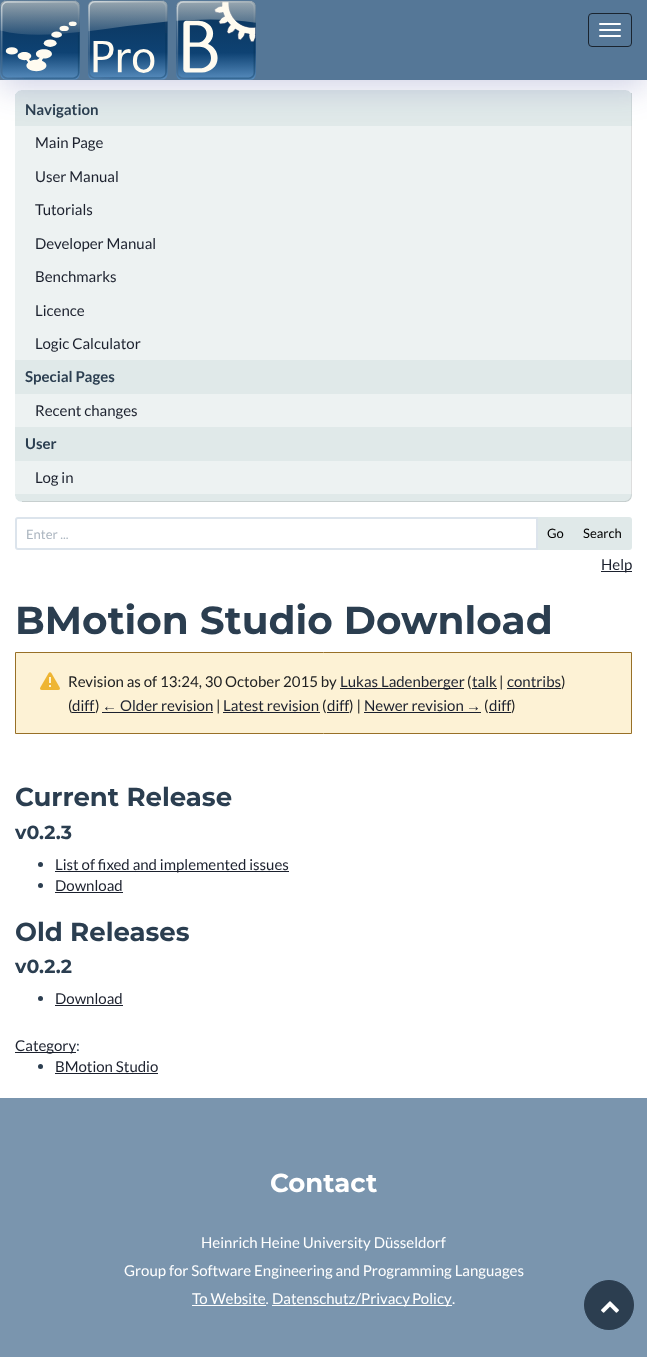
(async () => {
    const canvas = document.querySelector("canvas");
    canvas.width = 647;
    canvas.height = 1357;
    const context = canvas.getContext("2d");
    context.miterLimit = 4;
    context.fontKerning = "normal";
    function write(s, x, y, font, color) {
        context.font = font;
        context.fillStyle = color;
        context.fillText(s, x, y);
    }
    function block(x, y, w, h, color) {
        context.fillStyle = color;
        context.fillRect(x, y, w, h);
    }
    function card(x, y, w, h, r, color) {
        context.fillStyle = color;
        context.beginPath();
        context.roundRect(x, y, w, h, r);
        context.fill();
    }
    async function photo(src, x, y, w, h) {
        const img = new Image();
        img.src = src;
        await img.decode();
        context.drawImage(img, x, y, w, h);
    }

    block(0, 0, 647, 1357, "rgb(255, 255, 255)");
    block(15, 90, 616, 405, "rgb(224, 233, 233)");
    block(631, 90, 1, 412, "rgb(208, 217, 217)");
    await photo("media/2.png", 15, 90, 617, 4);
    block(15, 126, 616, 234, "rgb(237, 242, 242)");
    block(631, 126, 1, 234, "rgb(221, 221, 221)");
    context.fillStyle = "rgba(31, 38, 135, 0.2)";
    context.filter = "blur(16px)";
    context.beginPath();
    context.rect(0, 8, 647, 80);
    context.fill();
    context.filter = "none";
    block(0, 0, 647, 80, "rgb(85, 119, 151)");
    await photo("media/1.png", 0, 0, 256, 80);
    context.beginPath();
    context.roundRect(588.5, 13.5, 43, 33, 3.5);
    context.strokeStyle = "rgb(26, 36, 47)";
    context.stroke();
    card(599, 23, 22, 2, 1, "rgb(255, 255, 255)");
    card(599, 29, 22, 2, 1, "rgb(255, 255, 255)");
    card(599, 35, 22, 2, 1, "rgb(255, 255, 255)");
    write("Navigation", 25, 115, "bold 15px Lato", "rgb(43, 62, 80)");
    write("Main Page", 35, 148, "15px Lato", "rgb(28, 33, 46)");
    write("User Manual", 35, 182, "15px Lato", "rgb(28, 33, 46)");
    write("Tutorials", 35, 215, "15px Lato", "rgb(28, 33, 46)");
    write("Developer Manual", 35, 249, "15px Lato", "rgb(28, 33, 46)");
    write("Benchmarks", 35, 282, "15px Lato", "rgb(28, 33, 46)");
    write("Licence", 35, 316, "15px Lato", "rgb(28, 33, 46)");
    write("Logic Calculator", 35, 349, "15px Lato", "rgb(28, 33, 46)");
    write("Special Pages", 25, 382, "bold 15px Lato", "rgb(43, 62, 80)");
    block(15, 394, 616, 33, "rgb(237, 242, 242)");
    block(631, 394, 1, 33, "rgb(221, 221, 221)");
    write("Recent changes", 35, 416, "15px Lato", "rgb(28, 33, 46)");
    write("User", 25, 449, "bold 15px Lato", "rgb(43, 62, 80)");
    block(15, 461, 616, 33, "rgb(237, 242, 242)");
    block(631, 461, 1, 33, "rgb(221, 221, 221)");
    write("Log in", 35, 483, "15px Lato", "rgb(28, 33, 46)");
    await photo("media/3.png", 15, 495, 617, 7);
    context.beginPath();
    context.roundRect(16, 518, 521, 31, [2, 0, 0, 2]);
    context.strokeStyle = "rgb(220, 228, 236)";
    context.lineWidth = 2;
    context.stroke();
    write("Enter ...", 26, 539, "13px Lato", "rgb(172, 182, 192)");
    block(538, 517, 35, 33, "rgb(224, 233, 233)");
    write("Go", 547, 538, "13px Lato", "rgb(0, 0, 0)");
    context.fillStyle = "rgb(224, 233, 233)";
    context.beginPath();
    context.roundRect(573, 517, 59, 33, [0, 3, 3, 0]);
    context.fill();
    write("Search", 583, 538, "13px Lato", "rgb(0, 0, 0)");
    block(601, 571, 31, 1, "rgb(28, 33, 46)");
    write("Help", 601, 570, "15px Lato", "rgb(28, 33, 46)");
    write("BMotion Studio Download", 15, 634, "bold 39px Montserrat", "rgb(43, 62, 80)");
    context.fillStyle = "rgb(253, 242, 213)";
    context.beginPath();
    context.rect(15.5, 652.5, 616, 81);
    context.fill();
    context.strokeStyle = "rgb(152, 112, 39)";
    context.lineWidth = 1;
    context.stroke();
    await photo("media/4.png", 40, 672, 20, 18);
    write("Revision as of 13:24, 30 October 2015 by", 68, 687, "15px Lato", "rgb(32, 33, 34)");
    block(340, 688, 124, 1, "rgb(28, 33, 46)");
    write("Lukas Ladenberger", 340, 687, "15px Lato", "rgb(28, 33, 46)");
    write("(", 467, 687, "15px Lato", "rgb(32, 33, 34)");
    block(472, 688, 25, 1, "rgb(28, 33, 46)");
    write("talk", 472, 687, "15px Lato", "rgb(28, 33, 46)");
    write("|", 499, 687, "15px Lato", "rgb(32, 33, 34)");
    write("contribs", 507, 687, "15px Lato", "rgb(28, 33, 46)");
    write(")", 561, 687, "15px Lato", "rgb(32, 33, 34)");
    block(507, 688, 54, 1, "rgb(28, 33, 46)");
    write("(", 68, 711, "15px Lato", "rgb(32, 33, 34)");
    write("diff", 72, 711, "15px Lato", "rgb(28, 33, 46)");
    block(72, 712, 23, 1, "rgb(28, 33, 46)");
    write(")", 95, 711, "15px Lato", "rgb(32, 33, 34)");
    write("←", 102, 711, "15px Liberation Sans", "rgb(28, 33, 46)");
    block(102, 712, 111, 1, "rgb(28, 33, 46)");
    write("Older revision", 120, 711, "15px Lato", "rgb(28, 33, 46)");
    write("|", 216, 711, "15px Lato", "rgb(32, 33, 34)");
    write("Latest revision", 223, 711, "15px Lato", "rgb(28, 33, 46)");
    block(223, 712, 97, 1, "rgb(28, 33, 46)");
    write("(", 322, 711, "15px Lato", "rgb(32, 33, 34)");
    write("diff", 327, 711, "15px Lato", "rgb(28, 33, 46)");
    block(327, 712, 22, 1, "rgb(28, 33, 46)");
    write(") |", 349, 711, "15px Lato", "rgb(32, 33, 34)");
    write("Newer revision", 364, 711, "15px Lato", "rgb(28, 33, 46)");
    write("→", 466, 711, "15px Liberation Sans", "rgb(28, 33, 46)");
    block(364, 712, 117, 1, "rgb(28, 33, 46)");
    write("(", 484, 711, "15px Lato", "rgb(32, 33, 34)");
    write("diff", 489, 711, "15px Lato", "rgb(28, 33, 46)");
    block(489, 712, 22, 1, "rgb(28, 33, 46)");
    write(")", 511, 711, "15px Lato", "rgb(32, 33, 34)");
    write("Current Release", 15, 806, "bold 26px Montserrat", "rgb(43, 62, 80)");
    write("v0.2.3", 15, 839, "bold 19px Montserrat", "rgb(43, 62, 80)");
    context.fillStyle = "rgb(44, 62, 80)";
    context.beginPath();
    context.arc(40.5, 864.5, 2.5, 0, Math.PI * 2);
    context.fill();
    block(55, 871, 234, 1, "rgb(28, 33, 46)");
    write("List of fixed and implemented issues", 55, 870, "15px Lato", "rgb(28, 33, 46)");
    context.fillStyle = "rgb(44, 62, 80)";
    context.beginPath();
    context.arc(40.5, 885.5, 2.5, 0, Math.PI * 2);
    context.fill();
    write("Download", 55, 891, "15px Lato", "rgb(28, 33, 46)");
    block(55, 892, 68, 1, "rgb(28, 33, 46)");
    write("Old Releases", 15, 941, "bold 26px Montserrat", "rgb(43, 62, 80)");
    write("v0.2.2", 15, 973, "bold 19px Montserrat", "rgb(43, 62, 80)");
    context.fillStyle = "rgb(44, 62, 80)";
    context.beginPath();
    context.arc(40.5, 998.5, 2.5, 0, Math.PI * 2);
    context.fill();
    write("Download", 55, 1004, "15px Lato", "rgb(28, 33, 46)");
    block(55, 1005, 68, 1, "rgb(28, 33, 46)");
    block(15, 1052, 61, 1, "rgb(28, 33, 46)");
    write("Category", 15, 1051, "15px Lato", "rgb(28, 33, 46)");
    write(":", 76, 1051, "15px Lato", "rgb(43, 62, 80)");
    context.fillStyle = "rgb(44, 62, 80)";
    context.beginPath();
    context.arc(40.5, 1066.5, 2.5, 0, Math.PI * 2);
    context.fill();
    write("BMotion Studio", 55, 1072, "15px Lato", "rgb(28, 33, 46)");
    block(55, 1073, 103, 1, "rgb(28, 33, 46)");
    block(0, 1098, 647, 259, "rgb(122, 149, 174)");
    write("Contact", 270, 1192, "bold 26px Montserrat", "rgb(255, 255, 255)");
    write("Heinrich Heine University Düsseldorf", 201, 1248, "15px Lato", "rgb(255, 255, 255)");
    write("Group for Software Engineering and Programming Languages", 124, 1276, "15px Lato", "rgb(255, 255, 255)");
    write("To Website.", 192, 1304, "15px Lato", "rgb(255, 255, 255)");
    block(192, 1305, 74, 1, "rgb(255, 255, 255)");
    block(272, 1305, 180, 1, "rgb(255, 255, 255)");
    context.wordSpacing = "-1px";
    write("Datenschutz/Privacy Policy", 272, 1304, "15px Lato", "rgb(255, 255, 255)");
    context.wordSpacing = "0px";
    write(".", 452, 1304, "15px Lato", "rgb(255, 255, 255)");
    context.fillStyle = "rgb(44, 62, 80)";
    context.beginPath();
    context.arc(609, 1305, 24.5, 0, Math.PI * 2);
    context.fill();
    context.strokeStyle = "rgb(44, 62, 80)";
    context.stroke();
    await photo("media/5.png", 601, 1301, 18, 12);
})();
